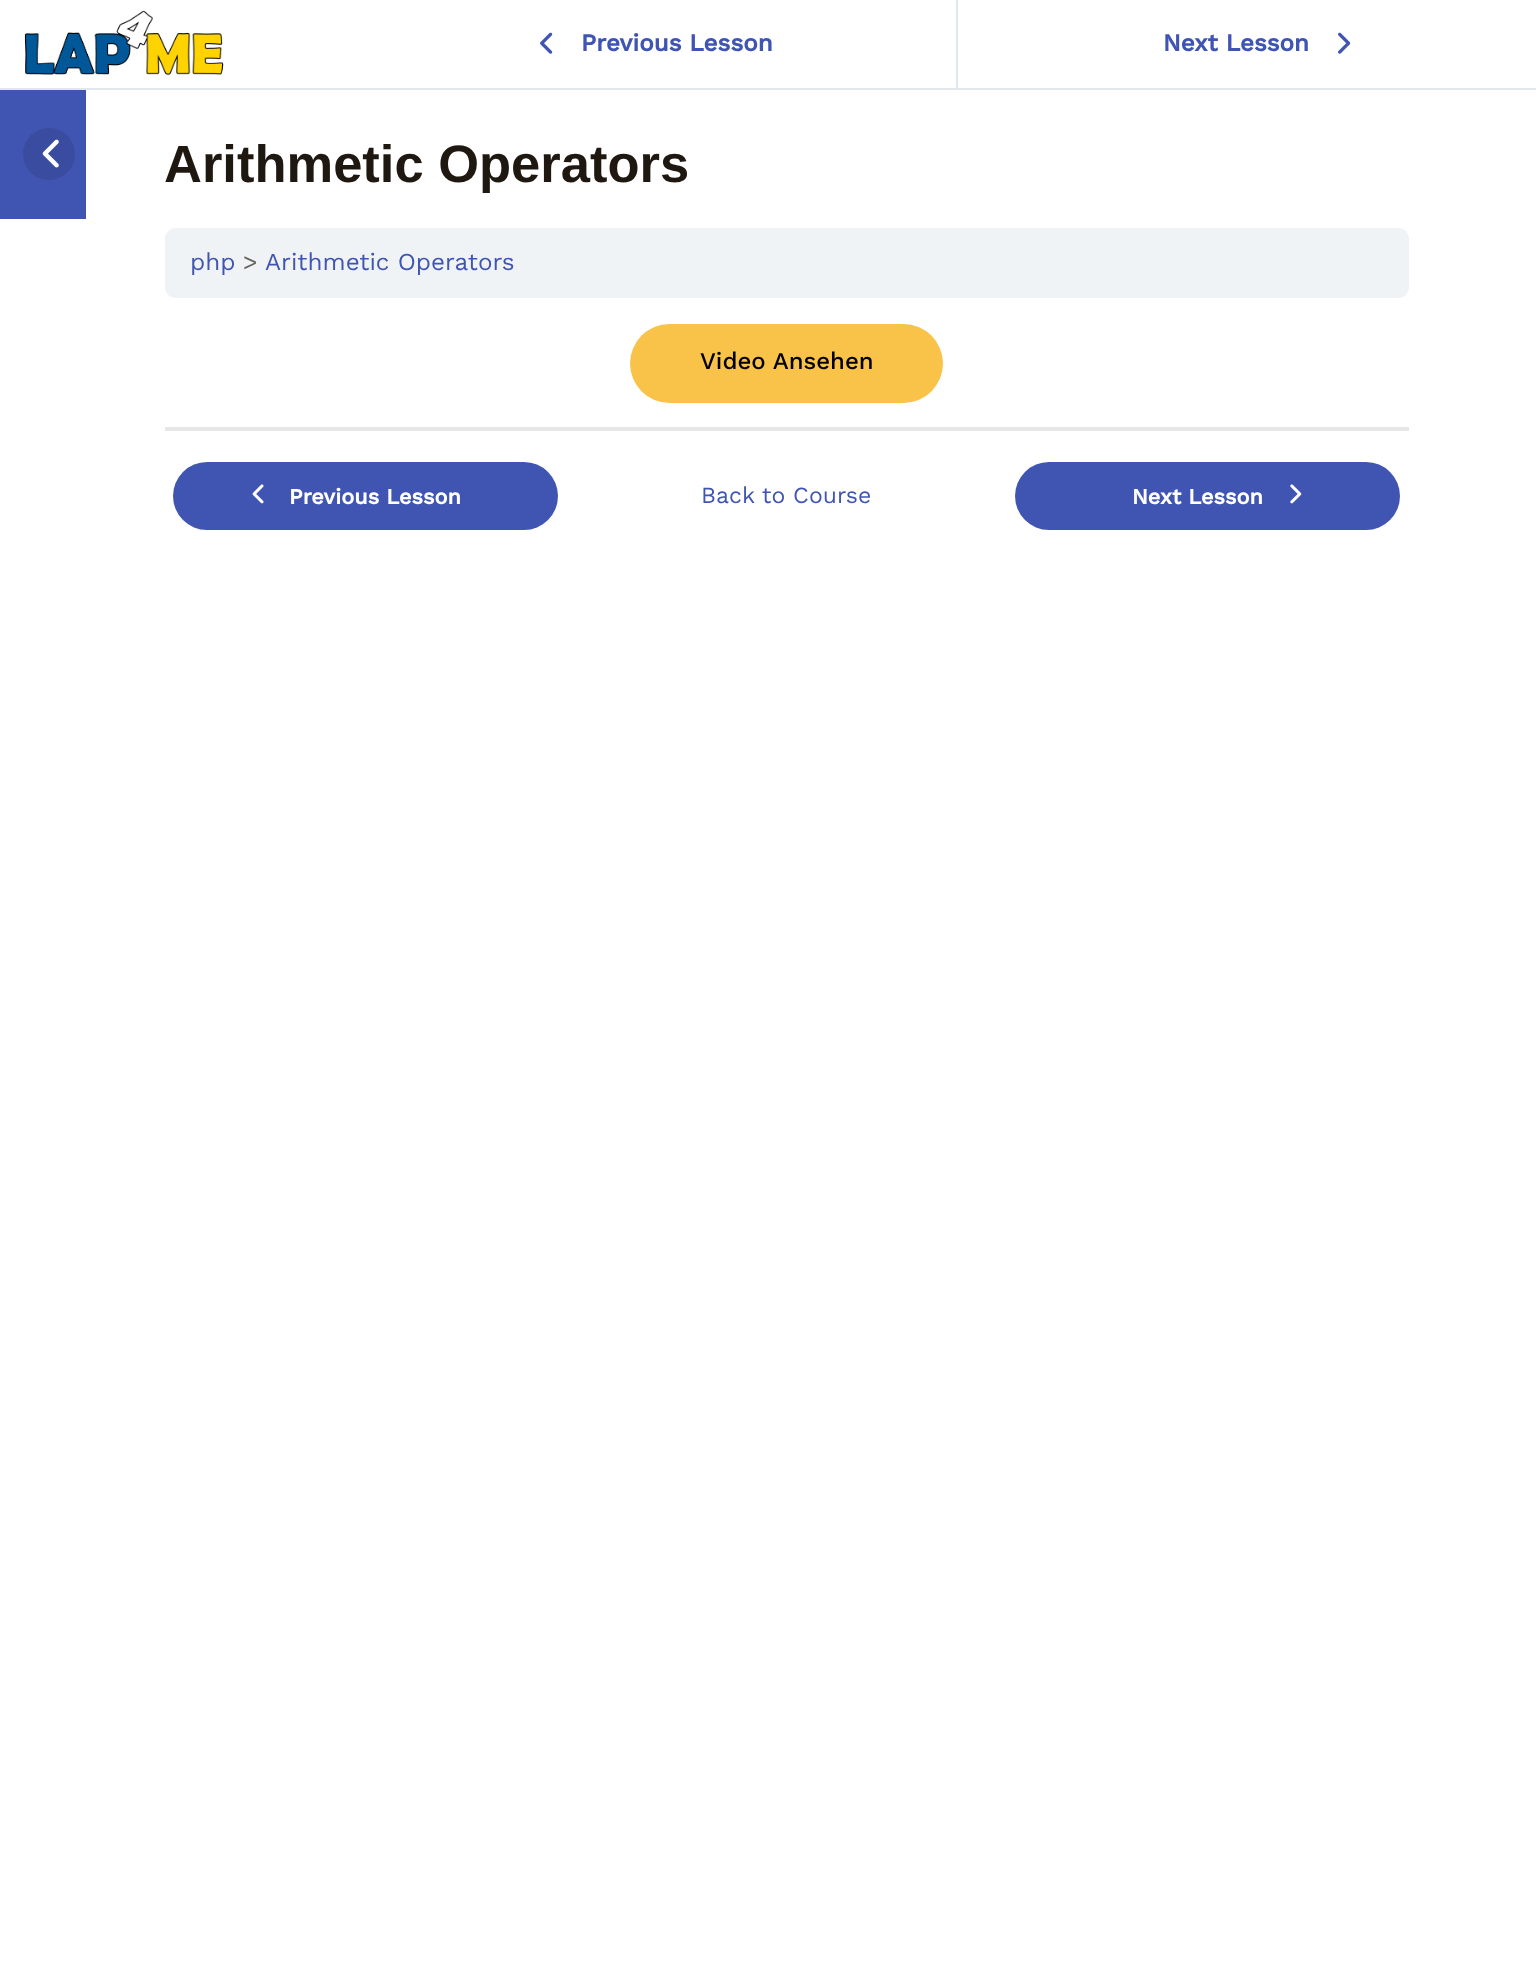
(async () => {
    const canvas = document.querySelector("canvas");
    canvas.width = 1536;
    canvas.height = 1962;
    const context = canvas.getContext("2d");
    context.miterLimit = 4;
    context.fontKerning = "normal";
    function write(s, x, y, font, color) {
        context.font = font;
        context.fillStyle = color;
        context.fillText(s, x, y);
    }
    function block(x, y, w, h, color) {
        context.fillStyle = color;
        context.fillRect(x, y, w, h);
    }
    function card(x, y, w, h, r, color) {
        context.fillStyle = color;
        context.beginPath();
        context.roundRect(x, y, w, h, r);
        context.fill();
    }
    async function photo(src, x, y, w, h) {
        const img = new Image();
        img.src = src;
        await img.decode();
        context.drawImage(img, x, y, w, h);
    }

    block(0, 0, 1536, 1962, "rgb(255, 255, 255)");
    block(0, 90, 86, 129, "rgb(64, 84, 178)");
    context.fillStyle = "rgb(58, 76, 160)";
    context.beginPath();
    context.arc(49, 154, 26, 0, Math.PI * 2);
    context.fill();
    await photo("media/1.png", 42, 139, 17, 29);
    block(0, 88, 1536, 2, "rgb(226, 231, 237)");
    await photo("media/2.png", 24, 10, 200, 65);
    block(956, 0, 2, 89, "rgb(226, 231, 237)");
    await photo("media/3.png", 540, 32, 13, 22);
    write("Previous Lesson", 581, 51, "bold 24.25px Work Sans", "rgb(64, 84, 178)");
    write("Next Lesson", 1163, 51, "bold 24.25px Work Sans", "rgb(64, 84, 178)");
    await photo("media/4.png", 1338, 32, 13, 22);
    write("Arithmetic Operators", 164, 182, "bold 52.5px Liberation Sans", "rgb(30, 24, 16)");
    card(165, 228, 1244, 70, 11, "rgb(240, 243, 246)");
    write("php", 190, 270, "24.25px Work Sans", "rgb(64, 84, 178)");
    write(">", 243, 270, "24.25px Work Sans", "rgb(98, 97, 92)");
    write("Arithmetic Operators", 265, 270, "24.25px Work Sans", "rgb(64, 84, 178)");
    card(630, 324, 313, 79, 39.5, "rgb(249, 195, 73)");
    write("Video Ansehen", 700, 369, "500 24px Work Sans", "rgb(0, 0, 0)");
    block(165, 427, 1244, 4, "rgb(230, 230, 230)");
    card(173, 462, 385, 68, 34, "rgb(64, 84, 178)");
    await photo("media/5.png", 252, 484, 12, 20);
    write("Previous Lesson", 289, 504, "bold 21.75px Work Sans", "rgb(255, 255, 255)");
    write("Back to Course", 701, 503, "23px Work Sans", "rgb(64, 84, 178)");
    card(1015, 462, 385, 68, 34, "rgb(64, 84, 178)");
    write("Next Lesson", 1132, 504, "bold 21.75px Work Sans", "rgb(255, 255, 255)");
    await photo("media/6.png", 1290, 484, 12, 20);
})();
